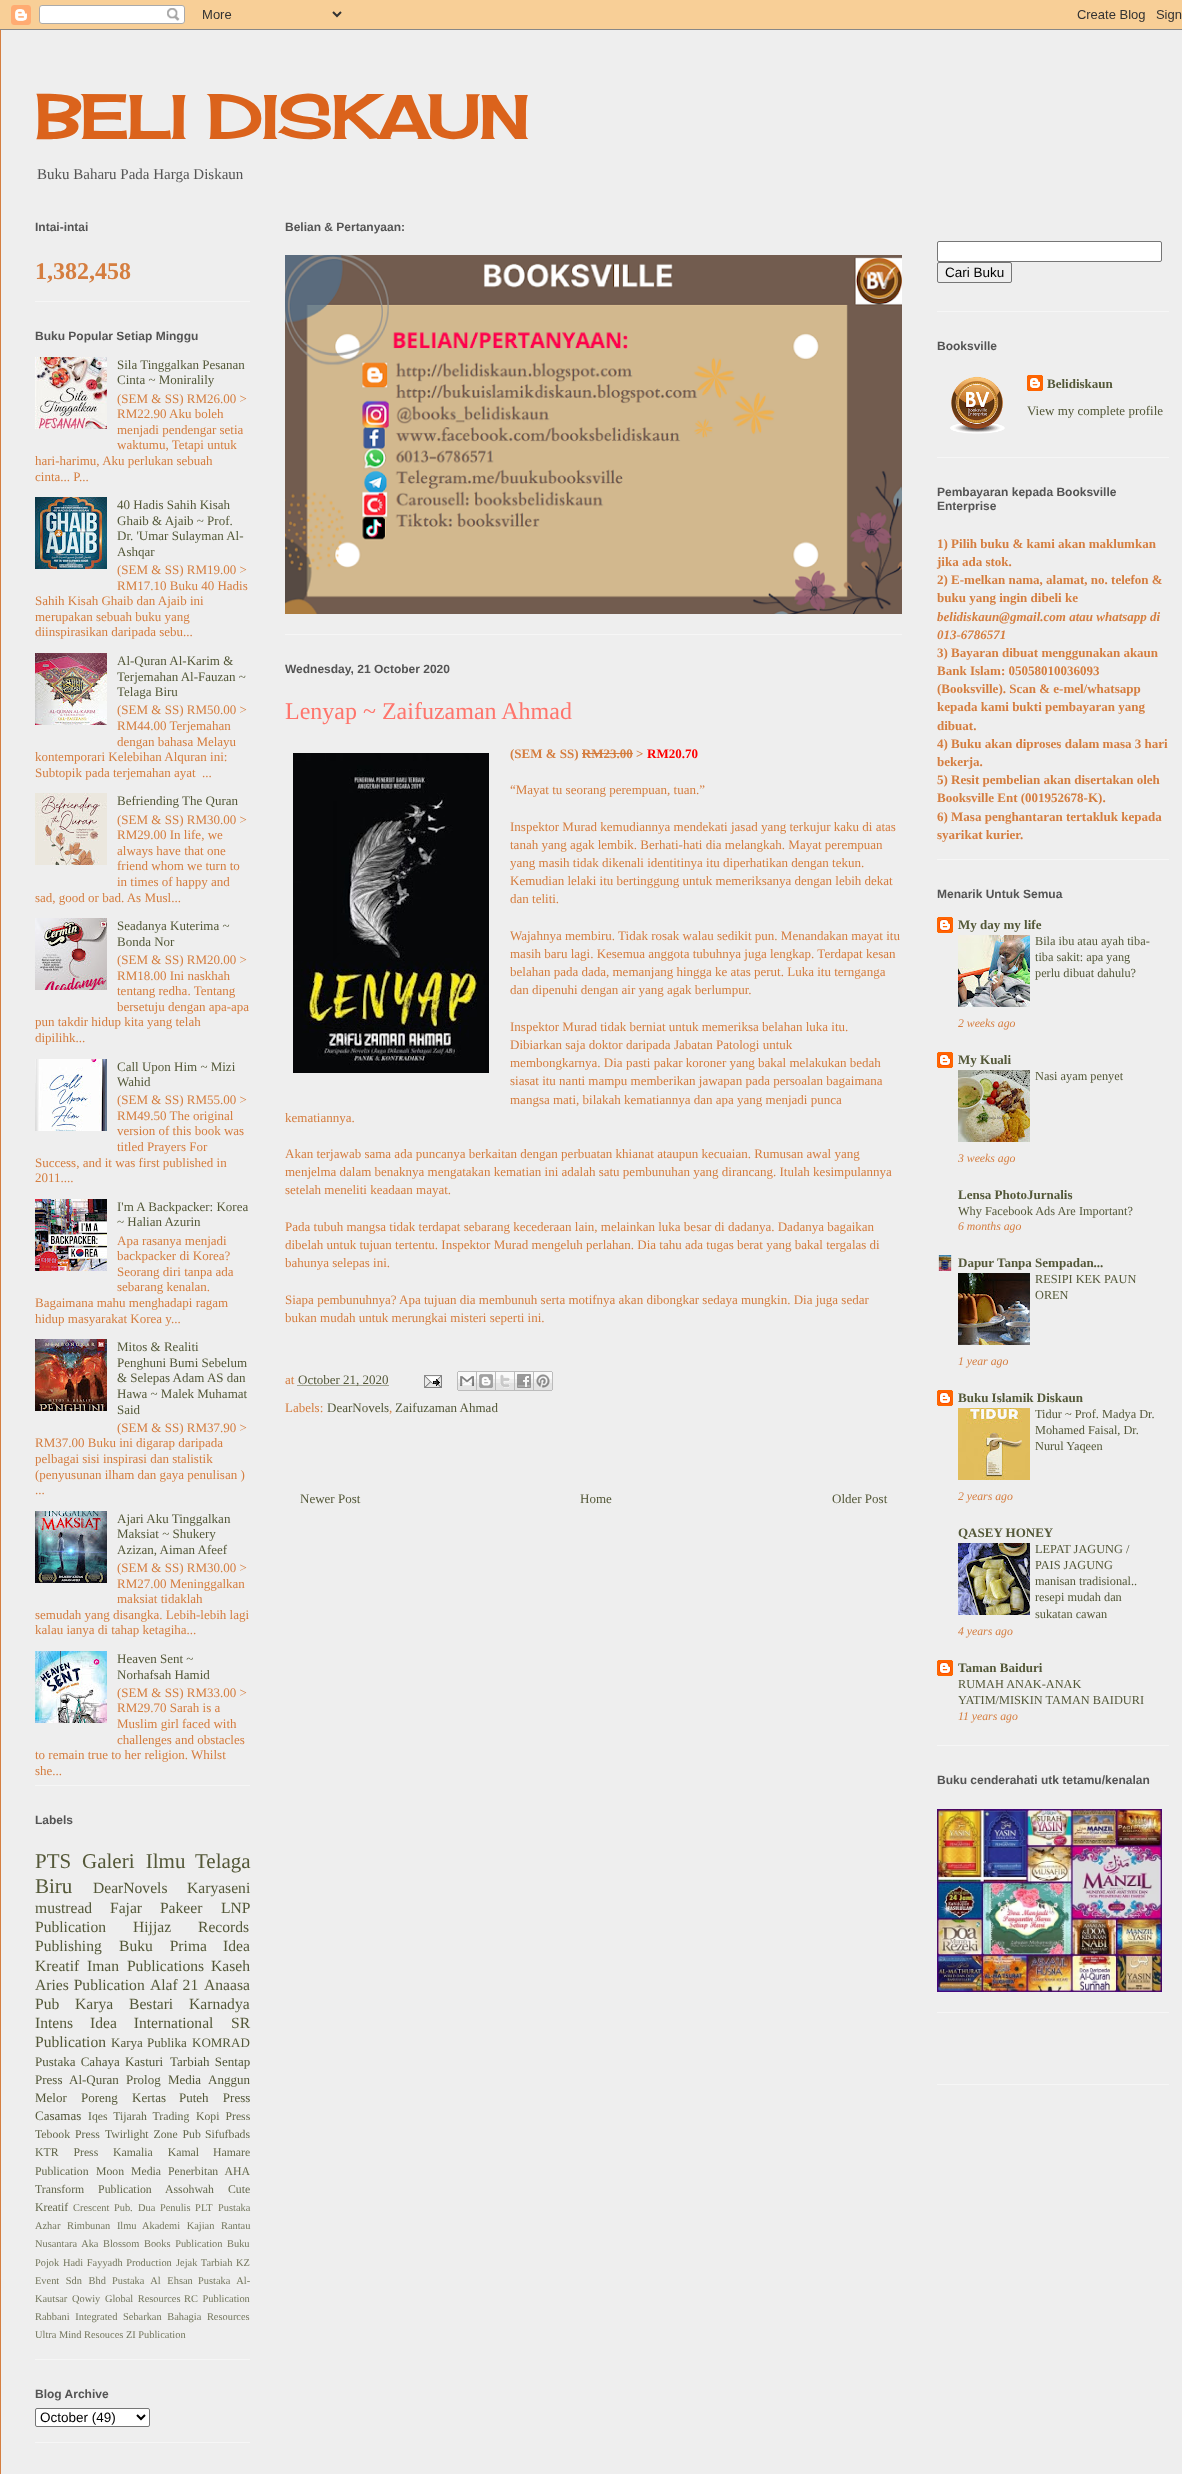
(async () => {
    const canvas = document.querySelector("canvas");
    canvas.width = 1182;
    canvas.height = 2474;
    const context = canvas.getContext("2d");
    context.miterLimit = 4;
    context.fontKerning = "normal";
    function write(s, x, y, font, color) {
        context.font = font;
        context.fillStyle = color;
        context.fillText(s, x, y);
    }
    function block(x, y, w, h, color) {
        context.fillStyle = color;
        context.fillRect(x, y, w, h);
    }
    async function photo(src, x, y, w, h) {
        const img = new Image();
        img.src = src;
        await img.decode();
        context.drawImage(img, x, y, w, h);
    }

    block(0, 0, 1182, 2474, "rgb(244, 175, 82)");
    await photo("media/1.png", 0, 0, 1182, 30);
    block(1, 30, 1181, 2444, "rgb(238, 238, 238)");
    block(0, 30, 1, 2444, "rgb(213, 126, 64)");
    write("BELI DISKAUN", 35, 139, "bold 60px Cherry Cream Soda", "rgb(219, 99, 28)");
    write("Buku Baharu Pada Harga Diskaun", 37, 179, "15px Liberation Serif", "rgb(84, 84, 84)");
    block(35, 301, 215, 1, "rgb(246, 246, 246)");
    write("Intai-intai", 35, 231, "bold 12px Liberation Sans", "rgb(84, 84, 84)");
    write("1,382,458", 35, 279, "bold 24px Liberation Serif", "rgb(213, 126, 64)");
    block(35, 1785, 215, 1, "rgb(246, 246, 246)");
    write("Buku Popular Setiap Minggu", 35, 340, "bold 12px Liberation Sans", "rgb(84, 84, 84)");
    await photo("media/2.png", 35, 357, 72, 72);
    write("Sila Tinggalkan Pesanan", 117, 369, "13px Liberation Serif", "rgb(84, 88, 56)");
    write("Cinta ~ Moniralily", 117, 384, "13px Liberation Serif", "rgb(84, 88, 56)");
    write("(SEM & SS) RM26.00 >", 117, 403, "13px Liberation Serif", "rgb(213, 126, 64)");
    write("RM22.90", 117, 418, "13px Liberation Serif", "rgb(213, 126, 64)");
    write("Aku boleh", 169, 418, "13px Liberation Serif", "rgb(213, 126, 64)");
    write("menjadi pendengar setia", 117, 434, "13px Liberation Serif", "rgb(213, 126, 64)");
    write("waktumu, Tetapi untuk", 117, 449, "13px Liberation Serif", "rgb(213, 126, 64)");
    write("hari-harimu, Aku perlukan sebuah", 35, 465, "13px Liberation Serif", "rgb(213, 126, 64)");
    write("cinta... P...", 35, 481, "13px Liberation Serif", "rgb(213, 126, 64)");
    await photo("media/3.png", 35, 497, 72, 72);
    write("40 Hadis Sahih Kisah", 117, 509, "13px Liberation Serif", "rgb(84, 88, 56)");
    write("Ghaib & Ajaib ~ Prof.", 117, 525, "13px Liberation Serif", "rgb(84, 88, 56)");
    write("Dr. 'Umar Sulayman Al-", 117, 540, "13px Liberation Serif", "rgb(84, 88, 56)");
    write("Ashqar", 117, 556, "13px Liberation Serif", "rgb(84, 88, 56)");
    write("(SEM & SS) RM19.00 >", 117, 574, "13px Liberation Serif", "rgb(213, 126, 64)");
    write("RM17.10 Buku 40 Hadis", 117, 590, "13px Liberation Serif", "rgb(213, 126, 64)");
    write("Sahih Kisah Ghaib dan Ajaib ini", 35, 605, "13px Liberation Serif", "rgb(213, 126, 64)");
    write("merupakan sebuah buku yang", 35, 621, "13px Liberation Serif", "rgb(213, 126, 64)");
    write("diinspirasikan daripada sebu...", 35, 636, "13px Liberation Serif", "rgb(213, 126, 64)");
    await photo("media/4.png", 35, 653, 72, 72);
    write("Al-Quran Al-Karim &", 117, 665, "13px Liberation Serif", "rgb(84, 88, 56)");
    write("Terjemahan Al-Fauzan ~", 117, 681, "13px Liberation Serif", "rgb(84, 88, 56)");
    write("Telaga Biru", 117, 696, "13px Liberation Serif", "rgb(84, 88, 56)");
    write("(SEM & SS) RM50.00 >", 117, 714, "13px Liberation Serif", "rgb(213, 126, 64)");
    write("RM44.00 Terjemahan", 117, 730, "13px Liberation Serif", "rgb(213, 126, 64)");
    write("dengan bahasa Melayu", 117, 746, "13px Liberation Serif", "rgb(213, 126, 64)");
    write("kontemporari Kelebihan Alquran ini:", 35, 761, "13px Liberation Serif", "rgb(213, 126, 64)");
    write("Subtopik pada terjemahan ayat", 35, 777, "13px Liberation Serif", "rgb(213, 126, 64)");
    write("...", 202, 777, "13px Liberation Serif", "rgb(213, 126, 64)");
    await photo("media/5.png", 35, 793, 72, 72);
    write("Befriending The Quran", 117, 805, "13px Liberation Serif", "rgb(84, 88, 56)");
    write("(SEM & SS) RM30.00 >", 117, 824, "13px Liberation Serif", "rgb(213, 126, 64)");
    write("RM29.00 In life, we", 117, 839, "13px Liberation Serif", "rgb(213, 126, 64)");
    write("always have that one", 117, 855, "13px Liberation Serif", "rgb(213, 126, 64)");
    write("friend whom we turn to", 117, 870, "13px Liberation Serif", "rgb(213, 126, 64)");
    write("in times of happy and", 117, 886, "13px Liberation Serif", "rgb(213, 126, 64)");
    write("sad, good or bad. As Musl...", 35, 902, "13px Liberation Serif", "rgb(213, 126, 64)");
    await photo("media/6.png", 35, 918, 72, 72);
    write("Seadanya Kuterima ~", 117, 930, "13px Liberation Serif", "rgb(84, 88, 56)");
    write("Bonda Nor", 117, 946, "13px Liberation Serif", "rgb(84, 88, 56)");
    write("(SEM & SS) RM20.00 >", 117, 964, "13px Liberation Serif", "rgb(213, 126, 64)");
    write("RM18.00 Ini naskhah", 117, 980, "13px Liberation Serif", "rgb(213, 126, 64)");
    write("tentang redha. Tentang", 117, 995, "13px Liberation Serif", "rgb(213, 126, 64)");
    write("bersetuju dengan apa-apa", 117, 1011, "13px Liberation Serif", "rgb(213, 126, 64)");
    write("pun takdir hidup kita yang telah", 35, 1026, "13px Liberation Serif", "rgb(213, 126, 64)");
    write("dipilihk...", 35, 1042, "13px Liberation Serif", "rgb(213, 126, 64)");
    await photo("media/7.png", 35, 1059, 72, 72);
    write("Call Upon Him ~ Mizi", 117, 1071, "13px Liberation Serif", "rgb(84, 88, 56)");
    write("Wahid", 117, 1086, "13px Liberation Serif", "rgb(84, 88, 56)");
    write("(SEM & SS) RM55.00 >", 117, 1104, "13px Liberation Serif", "rgb(213, 126, 64)");
    write("RM49.50 The original", 117, 1120, "13px Liberation Serif", "rgb(213, 126, 64)");
    write("version of this book was", 117, 1135, "13px Liberation Serif", "rgb(213, 126, 64)");
    write("titled Prayers For", 117, 1151, "13px Liberation Serif", "rgb(213, 126, 64)");
    write("Success, and it was first published in", 35, 1167, "13px Liberation Serif", "rgb(213, 126, 64)");
    write("2011....", 35, 1182, "13px Liberation Serif", "rgb(213, 126, 64)");
    await photo("media/8.png", 35, 1199, 72, 72);
    write("I'm A Backpacker: Korea", 117, 1211, "13px Liberation Serif", "rgb(84, 88, 56)");
    write("~ Halian Azurin", 117, 1226, "13px Liberation Serif", "rgb(84, 88, 56)");
    write("Apa rasanya menjadi", 117, 1245, "13px Liberation Serif", "rgb(213, 126, 64)");
    write("backpacker di Korea?", 117, 1260, "13px Liberation Serif", "rgb(213, 126, 64)");
    write("Seorang diri tanpa ada", 117, 1276, "13px Liberation Serif", "rgb(213, 126, 64)");
    write("sebarang kenalan.", 117, 1291, "13px Liberation Serif", "rgb(213, 126, 64)");
    write("Bagaimana mahu menghadapi ragam", 35, 1307, "13px Liberation Serif", "rgb(213, 126, 64)");
    write("hidup masyarakat Korea y...", 35, 1323, "13px Liberation Serif", "rgb(213, 126, 64)");
    await photo("media/9.png", 35, 1339, 72, 72);
    write("Mitos & Realiti", 117, 1351, "13px Liberation Serif", "rgb(84, 88, 56)");
    write("Penghuni Bumi Sebelum", 117, 1367, "13px Liberation Serif", "rgb(84, 88, 56)");
    write("& Selepas Adam AS dan", 117, 1382, "13px Liberation Serif", "rgb(84, 88, 56)");
    write("Hawa ~ Malek Muhamat", 117, 1398, "13px Liberation Serif", "rgb(84, 88, 56)");
    write("Said", 117, 1414, "13px Liberation Serif", "rgb(84, 88, 56)");
    write("(SEM & SS) RM37.90 >", 117, 1432, "13px Liberation Serif", "rgb(213, 126, 64)");
    write("RM37.00 Buku ini digarap daripada", 35, 1447, "13px Liberation Serif", "rgb(213, 126, 64)");
    write("pelbagai sisi inspirasi dan stalistik", 35, 1463, "13px Liberation Serif", "rgb(213, 126, 64)");
    write("(penyusunan ilham dan gaya penulisan )", 35, 1479, "13px Liberation Serif", "rgb(213, 126, 64)");
    write("...", 35, 1494, "13px Liberation Serif", "rgb(213, 126, 64)");
    await photo("media/10.png", 35, 1511, 72, 72);
    write("Ajari Aku Tinggalkan", 117, 1523, "13px Liberation Serif", "rgb(84, 88, 56)");
    write("Maksiat ~ Shukery", 117, 1538, "13px Liberation Serif", "rgb(84, 88, 56)");
    write("Azizan, Aiman Afeef", 117, 1554, "13px Liberation Serif", "rgb(84, 88, 56)");
    write("(SEM & SS) RM30.00 >", 117, 1572, "13px Liberation Serif", "rgb(213, 126, 64)");
    write("RM27.00 Meninggalkan", 117, 1588, "13px Liberation Serif", "rgb(213, 126, 64)");
    write("maksiat tidaklah", 117, 1603, "13px Liberation Serif", "rgb(213, 126, 64)");
    write("semudah yang disangka. Lebih-lebih lagi", 35, 1619, "13px Liberation Serif", "rgb(213, 126, 64)");
    write("kalau ianya di tahap ketagiha...", 35, 1634, "13px Liberation Serif", "rgb(213, 126, 64)");
    await photo("media/11.png", 35, 1651, 72, 72);
    write("Heaven Sent ~", 117, 1663, "13px Liberation Serif", "rgb(84, 88, 56)");
    write("Norhafsah Hamid", 117, 1679, "13px Liberation Serif", "rgb(84, 88, 56)");
    write("(SEM & SS) RM33.00 >", 117, 1697, "13px Liberation Serif", "rgb(213, 126, 64)");
    write("RM29.70 Sarah is a", 117, 1712, "13px Liberation Serif", "rgb(213, 126, 64)");
    write("Muslim girl faced with", 117, 1728, "13px Liberation Serif", "rgb(213, 126, 64)");
    write("challenges and obstacles", 117, 1744, "13px Liberation Serif", "rgb(213, 126, 64)");
    write("to remain true to her religion. Whilst", 35, 1759, "13px Liberation Serif", "rgb(213, 126, 64)");
    write("she...", 35, 1775, "13px Liberation Serif", "rgb(213, 126, 64)");
    block(35, 2359, 215, 1, "rgb(246, 246, 246)");
    write("Labels", 35, 1824, "bold 12px Liberation Sans", "rgb(84, 84, 84)");
    write("PTS", 35, 1868, "21px Liberation Serif", "rgb(84, 88, 56)");
    context.wordSpacing = "6px";
    write("Galeri Ilmu", 82, 1868, "21px Liberation Serif", "rgb(84, 88, 56)");
    context.wordSpacing = "0px";
    write("Telaga", 195, 1868, "21px Liberation Serif", "rgb(84, 88, 56)");
    write("Biru", 35, 1893, "21px Liberation Serif", "rgb(84, 88, 56)");
    write("DearNovels", 93, 1893, "15.6px Liberation Serif", "rgb(84, 88, 56)");
    write("Karyaseni", 187, 1893, "15.6px Liberation Serif", "rgb(84, 88, 56)");
    write("mustread", 35, 1913, "15.6px Liberation Serif", "rgb(84, 88, 56)");
    context.wordSpacing = "14px";
    write("Fajar Pakeer", 110, 1913, "15.6px Liberation Serif", "rgb(84, 88, 56)");
    context.wordSpacing = "0px";
    write("LNP", 221, 1913, "15.6px Liberation Serif", "rgb(84, 88, 56)");
    write("Publication", 35, 1932, "15.6px Liberation Serif", "rgb(84, 88, 56)");
    context.wordSpacing = "23px";
    write("Hijjaz Records", 133, 1932, "15.6px Liberation Serif", "rgb(84, 88, 56)");
    context.wordSpacing = "0px";
    write("Publishing", 35, 1951, "15.6px Liberation Serif", "rgb(84, 88, 56)");
    context.wordSpacing = "13px";
    write("Buku Prima", 119, 1951, "15.6px Liberation Serif", "rgb(84, 88, 56)");
    context.wordSpacing = "0px";
    write("Idea", 223, 1951, "15.6px Liberation Serif", "rgb(84, 88, 56)");
    write("Kreatif", 35, 1971, "15.6px Liberation Serif", "rgb(84, 88, 56)");
    context.wordSpacing = "4px";
    write("Iman Publications", 87, 1971, "15.6px Liberation Serif", "rgb(84, 88, 56)");
    context.wordSpacing = "0px";
    write("Kaseh", 211, 1971, "15.6px Liberation Serif", "rgb(84, 88, 56)");
    context.wordSpacing = "1px";
    write("Aries Publication", 35, 1990, "15.6px Liberation Serif", "rgb(84, 88, 56)");
    write("Alaf 21", 150, 1990, "15.6px Liberation Serif", "rgb(84, 88, 56)");
    context.wordSpacing = "0px";
    write("Anaasa", 204, 1990, "15.6px Liberation Serif", "rgb(84, 88, 56)");
    write("Pub", 35, 2009, "15.6px Liberation Serif", "rgb(84, 88, 56)");
    context.wordSpacing = "12px";
    write("Karya Bestari", 75, 2009, "15.6px Liberation Serif", "rgb(84, 88, 56)");
    context.wordSpacing = "0px";
    write("Karnadya", 189, 2009, "15.6px Liberation Serif", "rgb(84, 88, 56)");
    context.wordSpacing = "13px";
    write("Intens Idea International", 35, 2028, "15.6px Liberation Serif", "rgb(84, 88, 56)");
    context.wordSpacing = "0px";
    write("SR", 231, 2028, "15.6px Liberation Serif", "rgb(84, 88, 56)");
    write("Publication", 35, 2047, "15.6px Liberation Serif", "rgb(84, 88, 56)");
    context.wordSpacing = "1px";
    write("Karya Publika", 111, 2047, "13px Liberation Serif", "rgb(84, 88, 56)");
    context.wordSpacing = "0px";
    write("KOMRAD", 192, 2047, "13px Liberation Serif", "rgb(84, 88, 56)");
    context.wordSpacing = "2px";
    write("Pustaka Cahaya Kasturi", 35, 2066, "13px Liberation Serif", "rgb(84, 88, 56)");
    write("Tarbiah Sentap", 170, 2066, "13px Liberation Serif", "rgb(84, 88, 56)");
    context.wordSpacing = "0px";
    write("Press", 35, 2084, "13px Liberation Serif", "rgb(84, 88, 56)");
    write("Al-Quran", 69, 2084, "13px Liberation Serif", "rgb(84, 88, 56)");
    context.wordSpacing = "4px";
    write("Prolog Media", 126, 2084, "13px Liberation Serif", "rgb(84, 88, 56)");
    context.wordSpacing = "0px";
    write("Anggun", 208, 2084, "13px Liberation Serif", "rgb(84, 88, 56)");
    write("Melor", 35, 2102, "13px Liberation Serif", "rgb(84, 88, 56)");
    context.wordSpacing = "11px";
    write("Poreng Kertas", 81, 2102, "13px Liberation Serif", "rgb(84, 88, 56)");
    write("Puteh Press", 179, 2102, "13px Liberation Serif", "rgb(84, 88, 56)");
    context.wordSpacing = "0px";
    write("Casamas", 35, 2120, "13px Liberation Serif", "rgb(84, 88, 56)");
    context.wordSpacing = "3px";
    write("Iqes Tijarah Trading", 88, 2120, "11.75px Liberation Serif", "rgb(99, 103, 74)");
    write("Kopi Press", 196, 2120, "11.75px Liberation Serif", "rgb(99, 103, 74)");
    context.wordSpacing = "2px";
    write("Tebook Press", 35, 2138, "11.75px Liberation Serif", "rgb(99, 103, 74)");
    write("Twirlight Zone Pub", 105, 2138, "11.75px Liberation Serif", "rgb(99, 103, 74)");
    context.wordSpacing = "0px";
    write("Sifufbads", 205, 2138, "11.75px Liberation Serif", "rgb(99, 103, 74)");
    context.wordSpacing = "12px";
    write("KTR Press", 35, 2156, "11.75px Liberation Serif", "rgb(99, 103, 74)");
    write("Kamalia Kamal", 113, 2156, "11.75px Liberation Serif", "rgb(99, 103, 74)");
    context.wordSpacing = "0px";
    write("Hamare", 213, 2156, "11.75px Liberation Serif", "rgb(99, 103, 74)");
    write("Publication", 35, 2175, "11.75px Liberation Serif", "rgb(99, 103, 74)");
    context.wordSpacing = "4px";
    write("Moon Media", 96, 2175, "11.75px Liberation Serif", "rgb(99, 103, 74)");
    write("Penerbitan AHA", 168, 2175, "11.75px Liberation Serif", "rgb(99, 103, 74)");
    context.wordSpacing = "11px";
    write("Transform Publication", 35, 2193, "11.75px Liberation Serif", "rgb(99, 103, 74)");
    context.wordSpacing = "0px";
    write("Assohwah", 165, 2193, "11.75px Liberation Serif", "rgb(99, 103, 74)");
    write("Cute", 228, 2193, "11.75px Liberation Serif", "rgb(99, 103, 74)");
    write("Kreatif", 35, 2211, "11.75px Liberation Serif", "rgb(99, 103, 74)");
    context.wordSpacing = "2px";
    write("Crescent Pub.", 73, 2211, "10.4px Liberation Serif", "rgb(115, 118, 92)");
    write("Dua Penulis PLT", 138, 2211, "10.4px Liberation Serif", "rgb(115, 118, 92)");
    context.wordSpacing = "0px";
    write("Pustaka", 218, 2211, "10.4px Liberation Serif", "rgb(115, 118, 92)");
    write("Azhar", 35, 2229, "10.4px Liberation Serif", "rgb(115, 118, 92)");
    context.wordSpacing = "4px";
    write("Rimbunan Ilmu", 67, 2229, "10.4px Liberation Serif", "rgb(115, 118, 92)");
    write("Akademi Kajian Rantau", 142, 2229, "10.4px Liberation Serif", "rgb(115, 118, 92)");
    context.wordSpacing = "2px";
    write("Nusantara Aka", 35, 2247, "10.4px Liberation Serif", "rgb(115, 118, 92)");
    write("Blossom Books Publication", 103, 2247, "10.4px Liberation Serif", "rgb(115, 118, 92)");
    context.wordSpacing = "0px";
    write("Buku", 227, 2247, "10.4px Liberation Serif", "rgb(115, 118, 92)");
    write("Pojok", 35, 2266, "10.4px Liberation Serif", "rgb(115, 118, 92)");
    context.wordSpacing = "1px";
    write("Hadi Fayyadh Production", 63, 2266, "10.4px Liberation Serif", "rgb(115, 118, 92)");
    write("Jejak Tarbiah", 176, 2266, "10.4px Liberation Serif", "rgb(115, 118, 92)");
    context.wordSpacing = "0px";
    write("KZ", 236, 2266, "10.4px Liberation Serif", "rgb(115, 118, 92)");
    context.wordSpacing = "4px";
    write("Event Sdn Bhd", 35, 2284, "10.4px Liberation Serif", "rgb(115, 118, 92)");
    write("Pustaka Al Ehsan", 112, 2284, "10.4px Liberation Serif", "rgb(115, 118, 92)");
    write("Pustaka Al-", 198, 2284, "10.4px Liberation Serif", "rgb(115, 118, 92)");
    context.wordSpacing = "0px";
    write("Kautsar", 35, 2302, "10.4px Liberation Serif", "rgb(115, 118, 92)");
    context.wordSpacing = "2px";
    write("Qowiy Global Resources", 72, 2302, "10.4px Liberation Serif", "rgb(115, 118, 92)");
    write("RC Publication", 184, 2302, "10.4px Liberation Serif", "rgb(115, 118, 92)");
    context.wordSpacing = "3px";
    write("Rabbani Integrated", 35, 2320, "10.4px Liberation Serif", "rgb(115, 118, 92)");
    write("Sebarkan Bahagia Resources", 123, 2320, "10.4px Liberation Serif", "rgb(115, 118, 92)");
    context.wordSpacing = "0px";
    write("Ultra Mind Resouces ZI Publication", 35, 2338, "10.4px Liberation Serif", "rgb(115, 118, 92)");
    block(35, 2442, 215, 1, "rgb(246, 246, 246)");
    write("Blog Archive", 35, 2398, "bold 12px Liberation Sans", "rgb(84, 84, 84)");
    context.fillStyle = "rgb(255, 255, 255)";
    context.beginPath();
    context.roundRect(35.5, 2408.5, 114, 18, 1.5);
    context.fill();
    context.strokeStyle = "rgb(118, 118, 118)";
    context.stroke();
    context.beginPath();
    context.moveTo(137, 2415);
    context.lineTo(141, 2419);
    context.lineTo(145, 2415);
    context.strokeStyle = "rgb(0, 0, 0)";
    context.lineWidth = 2;
    context.stroke();
    write("October (49)", 40, 2422, "13.5px Liberation Sans", "rgb(0, 0, 0)");
    block(285, 634, 617, 1, "rgb(246, 246, 246)");
    write("Belian & Pertanyaan:", 285, 231, "bold 12px Liberation Sans", "rgb(84, 84, 84)");
    await photo("media/12.png", 285, 255, 617, 359);
    write("Wednesday, 21 October 2020", 285, 673, "bold 12px Liberation Sans", "rgb(84, 84, 84)");
    write("Lenyap ~ Zaifuzaman Ahmad", 285, 719, "24px Liberation Serif", "rgb(255, 117, 108)");
    await photo("media/13.png", 293, 753, 196, 320);
    write("(SEM & SS) RM23.00 >", 510, 758, "bold 13px Liberation Serif", "rgb(213, 126, 64)");
    block(582, 753, 51, 1, "rgb(213, 126, 64)");
    write("RM20.70", 647, 758, "bold 13px Liberation Serif", "rgb(255, 0, 0)");
    write("“Mayat tu seorang perempuan, tuan.”", 510, 794, "13px Liberation Serif", "rgb(213, 126, 64)");
    write("Inspektor Murad kemudiannya mendekati jasad yang terkujur kaku di atas", 510, 831, "13px Liberation Serif", "rgb(213, 126, 64)");
    write("tanah yang agak lembik. Berhati-hati dia melangkah. Mayat perempuan", 510, 849, "13px Liberation Serif", "rgb(213, 126, 64)");
    write("yang masih tidak dikenali identitinya itu diperhatikan dengan tekun.", 510, 867, "13px Liberation Serif", "rgb(213, 126, 64)");
    write("Kemudian lelaki itu bertinggung untuk memeriksanya dengan lebih dekat", 510, 885, "13px Liberation Serif", "rgb(213, 126, 64)");
    write("dan teliti.", 510, 903, "13px Liberation Serif", "rgb(213, 126, 64)");
    write("Wajahnya membiru. Tidak rosak walau sedikit pun. Menandakan mayat itu", 510, 940, "13px Liberation Serif", "rgb(213, 126, 64)");
    write("masih baru lagi. Kesemua anggota tubuhnya juga lengkap. Terdapat kesan", 510, 958, "13px Liberation Serif", "rgb(213, 126, 64)");
    write("belahan pada dada, memanjang hingga ke atas perut. Luka itu ternganga", 510, 976, "13px Liberation Serif", "rgb(213, 126, 64)");
    write("dan dipenuhi dengan air yang agak berlumpur.", 510, 994, "13px Liberation Serif", "rgb(213, 126, 64)");
    write("Inspektor Murad tidak berniat untuk memeriksa belahan luka itu.", 510, 1031, "13px Liberation Serif", "rgb(213, 126, 64)");
    write("Dibiarkan saja doktor daripada Jabatan Patologi untuk", 510, 1049, "13px Liberation Serif", "rgb(213, 126, 64)");
    write("membongkarnya. Dia pasti pakar koroner yang bakal melakukan bedah", 510, 1067, "13px Liberation Serif", "rgb(213, 126, 64)");
    write("siasat itu nanti mampu memberikan jawapan pada persoalan bagaimana", 510, 1085, "13px Liberation Serif", "rgb(213, 126, 64)");
    write("mangsa mati, bilakah kematiannya dan apa yang menjadi punca", 510, 1104, "13px Liberation Serif", "rgb(213, 126, 64)");
    write("kematiannya.", 285, 1122, "13px Liberation Serif", "rgb(213, 126, 64)");
    write("Akan terjawab sama ada puncanya berkaitan dengan perbuatan khianat ataupun kecuaian. Rumusan awal yang", 285, 1158, "13px Liberation Serif", "rgb(213, 126, 64)");
    write("menjelma dalam benaknya mengatakan kematian ini adalah satu pembunuhan yang dirancang. Itulah kesimpulannya", 285, 1176, "13px Liberation Serif", "rgb(213, 126, 64)");
    write("setelah meneliti keadaan mayat.", 285, 1194, "13px Liberation Serif", "rgb(213, 126, 64)");
    write("Pada tubuh mangsa tidak terdapat sebarang kecederaan lain, melainkan luka besar di dadanya. Dadanya bagaikan", 285, 1231, "13px Liberation Serif", "rgb(213, 126, 64)");
    write("dibelah untuk tujuan tertentu. Inspektor Murad mengeluh perlahan. Dia tahu ada tugas berat yang bakal tergalas di", 285, 1249, "13px Liberation Serif", "rgb(213, 126, 64)");
    write("bahunya selepas ini.", 285, 1267, "13px Liberation Serif", "rgb(213, 126, 64)");
    write("Siapa pembunuhnya? Apa tujuan dia membunuh serta motifnya akan dibongkar sedaya mungkin. Dia juga sedar", 285, 1304, "13px Liberation Serif", "rgb(213, 126, 64)");
    write("bukan mudah untuk merungkai misteri seperti ini.", 285, 1322, "13px Liberation Serif", "rgb(213, 126, 64)");
    write("at", 285, 1384, "13px Liberation Serif", "rgb(213, 126, 64)");
    context.beginPath();
    context.moveTo(297.5, 1385.5);
    context.lineTo(388.5, 1385.5);
    context.strokeStyle = "rgb(84, 88, 56)";
    context.lineWidth = 1;
    context.setLineDash([1, 1]);
    context.stroke();
    write("October 21, 2020", 298, 1384, "13px Liberation Serif", "rgb(84, 88, 56)");
    await photo("media/14.png", 424, 1375, 18, 13);
    await photo("media/15.png", 457, 1371, 20, 20);
    await photo("media/16.png", 477, 1371, 19, 20);
    await photo("media/17.png", 496, 1371, 19, 20);
    await photo("media/18.png", 515, 1371, 19, 20);
    await photo("media/19.png", 534, 1371, 19, 20);
    write("Labels:", 285, 1412, "13px Liberation Serif", "rgb(213, 126, 64)");
    write("DearNovels", 327, 1412, "13px Liberation Serif", "rgb(84, 88, 56)");
    write(",", 389, 1412, "13px Liberation Serif", "rgb(213, 126, 64)");
    write("Zaifuzaman Ahmad", 395, 1412, "13px Liberation Serif", "rgb(84, 88, 56)");
    write("Newer Post", 300, 1503, "13px Liberation Serif", "rgb(84, 88, 56)");
    write("Home", 580, 1503, "13px Liberation Serif", "rgb(84, 88, 56)");
    write("Older Post", 832, 1503, "13px Liberation Serif", "rgb(84, 88, 56)");
    block(937, 311, 232, 1, "rgb(246, 246, 246)");
    context.fillStyle = "rgb(255, 255, 255)";
    context.beginPath();
    context.roundRect(937.5, 241.5, 224, 20, 1.5);
    context.fill();
    context.strokeStyle = "rgb(118, 118, 118)";
    context.setLineDash([]);
    context.stroke();
    context.beginPath();
    context.roundRect(937.5, 262.5, 74, 20, 1.5);
    context.stroke();
    write("Cari Buku", 945, 277, "13.5px Liberation Sans", "rgb(0, 0, 0)");
    block(937, 457, 232, 1, "rgb(246, 246, 246)");
    write("Booksville", 937, 350, "bold 12px Liberation Sans", "rgb(84, 84, 84)");
    await photo("media/20.png", 950, 376, 55, 58);
    await photo("media/21.png", 1027, 375, 16, 16);
    write("Belidiskaun", 1047, 388, "bold 13px Liberation Serif", "rgb(84, 88, 56)");
    write("View my complete profile", 1027, 415, "13px Liberation Serif", "rgb(84, 88, 56)");
    block(937, 859, 232, 1, "rgb(246, 246, 246)");
    write("Pembayaran kepada Booksville", 937, 496, "bold 12px Liberation Sans", "rgb(84, 84, 84)");
    write("Enterprise", 937, 510, "bold 12px Liberation Sans", "rgb(84, 84, 84)");
    write("1) Pilih buku & kami akan maklumkan", 937, 548, "bold 13px Liberation Serif", "rgb(213, 126, 64)");
    write("jika ada stok.", 937, 566, "bold 13px Liberation Serif", "rgb(213, 126, 64)");
    write("2) E-melkan nama, alamat, no. telefon &", 937, 584, "bold 13px Liberation Serif", "rgb(213, 126, 64)");
    write("buku yang ingin dibeli ke", 937, 602, "bold 13px Liberation Serif", "rgb(213, 126, 64)");
    write("belidiskaun@gmail.com atau whatsapp di", 937, 621, "italic bold 13px Liberation Serif", "rgb(213, 126, 64)");
    write("013-6786571", 937, 639, "italic bold 13px Liberation Serif", "rgb(213, 126, 64)");
    write("3) Bayaran dibuat menggunakan akaun", 937, 657, "bold 13px Liberation Serif", "rgb(213, 126, 64)");
    write("Bank Islam: 05058010036093", 937, 675, "bold 13px Liberation Serif", "rgb(213, 126, 64)");
    write("(Booksville). Scan & e-mel/whatsapp", 937, 693, "bold 13px Liberation Serif", "rgb(213, 126, 64)");
    write("kepada kami bukti pembayaran yang", 937, 711, "bold 13px Liberation Serif", "rgb(213, 126, 64)");
    write("dibuat.", 937, 730, "bold 13px Liberation Serif", "rgb(213, 126, 64)");
    write("4) Buku akan diproses dalam masa 3 hari", 937, 748, "bold 13px Liberation Serif", "rgb(213, 126, 64)");
    write("bekerja.", 937, 766, "bold 13px Liberation Serif", "rgb(213, 126, 64)");
    write("5) Resit pembelian akan disertakan oleh", 937, 784, "bold 13px Liberation Serif", "rgb(213, 126, 64)");
    write("Booksville Ent (001952678-K).", 937, 802, "bold 13px Liberation Serif", "rgb(213, 126, 64)");
    write("6) Masa penghantaran tertakluk kepada", 937, 821, "bold 13px Liberation Serif", "rgb(213, 126, 64)");
    write("syarikat kurier.", 937, 839, "bold 13px Liberation Serif", "rgb(213, 126, 64)");
    block(937, 1745, 232, 1, "rgb(246, 246, 246)");
    write("Menarik Untuk Semua", 937, 898, "bold 12px Liberation Sans", "rgb(84, 84, 84)");
    await photo("media/22.png", 937, 917, 16, 16);
    write("My day my life", 958, 929, "bold 13px Liberation Serif", "rgb(84, 88, 56)");
    await photo("media/23.png", 958, 935, 72, 72);
    write("Bila ibu atau ayah tiba-", 1035, 945, "12.3px Liberation Serif", "rgb(84, 88, 56)");
    write("tiba sakit: apa yang", 1035, 961, "12.3px Liberation Serif", "rgb(84, 88, 56)");
    write("perlu dibuat dahulu?", 1035, 977, "12.3px Liberation Serif", "rgb(84, 88, 56)");
    write("2 weeks ago", 958, 1027, "italic 11.75px Liberation Serif", "rgb(213, 126, 64)");
    await photo("media/22.png", 937, 1052, 16, 16);
    write("My Kuali", 958, 1064, "bold 13px Liberation Serif", "rgb(84, 88, 56)");
    await photo("media/24.png", 958, 1070, 72, 72);
    write("Nasi ayam penyet", 1035, 1080, "12.3px Liberation Serif", "rgb(84, 88, 56)");
    write("3 weeks ago", 958, 1162, "italic 11.75px Liberation Serif", "rgb(213, 126, 64)");
    write("Lensa PhotoJurnalis", 958, 1199, "bold 13px Liberation Serif", "rgb(84, 88, 56)");
    write("Why Facebook Ads Are Important?", 958, 1215, "12.3px Liberation Serif", "rgb(84, 88, 56)");
    write("6 months ago", 958, 1230, "italic 11.75px Liberation Serif", "rgb(213, 126, 64)");
    await photo("media/25.png", 938, 1255, 14, 16);
    write("Dapur Tanpa Sempadan...", 958, 1267, "bold 13px Liberation Serif", "rgb(84, 88, 56)");
    await photo("media/26.png", 958, 1273, 72, 72);
    write("RESIPI KEK PAUN", 1035, 1283, "12.3px Liberation Serif", "rgb(84, 88, 56)");
    write("OREN", 1035, 1299, "12.3px Liberation Serif", "rgb(84, 88, 56)");
    write("1 year ago", 958, 1365, "italic 11.75px Liberation Serif", "rgb(213, 126, 64)");
    await photo("media/22.png", 937, 1390, 16, 16);
    write("Buku Islamik Diskaun", 958, 1402, "bold 13px Liberation Serif", "rgb(84, 88, 56)");
    await photo("media/27.png", 958, 1408, 72, 72);
    write("Tidur ~ Prof. Madya Dr.", 1035, 1418, "12.3px Liberation Serif", "rgb(84, 88, 56)");
    write("Mohamed Faisal, Dr.", 1035, 1434, "12.3px Liberation Serif", "rgb(84, 88, 56)");
    write("Nurul Yaqeen", 1035, 1450, "12.3px Liberation Serif", "rgb(84, 88, 56)");
    write("2 years ago", 958, 1500, "italic 11.75px Liberation Serif", "rgb(213, 126, 64)");
    write("QASEY HONEY", 958, 1537, "bold 13px Liberation Serif", "rgb(84, 88, 56)");
    await photo("media/28.png", 958, 1543, 72, 72);
    write("LEPAT JAGUNG /", 1035, 1553, "12.3px Liberation Serif", "rgb(84, 88, 56)");
    write("PAIS JAGUNG", 1035, 1569, "12.3px Liberation Serif", "rgb(84, 88, 56)");
    write("manisan tradisional..", 1035, 1585, "12.3px Liberation Serif", "rgb(84, 88, 56)");
    write("resepi mudah dan", 1035, 1601, "12.3px Liberation Serif", "rgb(84, 88, 56)");
    write("sukatan cawan", 1035, 1618, "12.3px Liberation Serif", "rgb(84, 88, 56)");
    write("4 years ago", 958, 1635, "italic 11.75px Liberation Serif", "rgb(213, 126, 64)");
    await photo("media/22.png", 937, 1660, 16, 16);
    write("Taman Baiduri", 958, 1672, "bold 13px Liberation Serif", "rgb(84, 88, 56)");
    write("RUMAH ANAK-ANAK", 958, 1688, "12.3px Liberation Serif", "rgb(84, 88, 56)");
    write("YATIM/MISKIN TAMAN BAIDURI", 958, 1704, "12.3px Liberation Serif", "rgb(84, 88, 56)");
    write("11 years ago", 958, 1720, "italic 11.75px Liberation Serif", "rgb(213, 126, 64)");
    block(937, 2012, 232, 1, "rgb(246, 246, 246)");
    write("Buku cenderahati utk tetamu/kenalan", 937, 1784, "bold 12px Liberation Sans", "rgb(84, 84, 84)");
    await photo("media/29.png", 937, 1809, 225, 183);
    block(937, 2084, 232, 1, "rgb(246, 246, 246)");
})();
